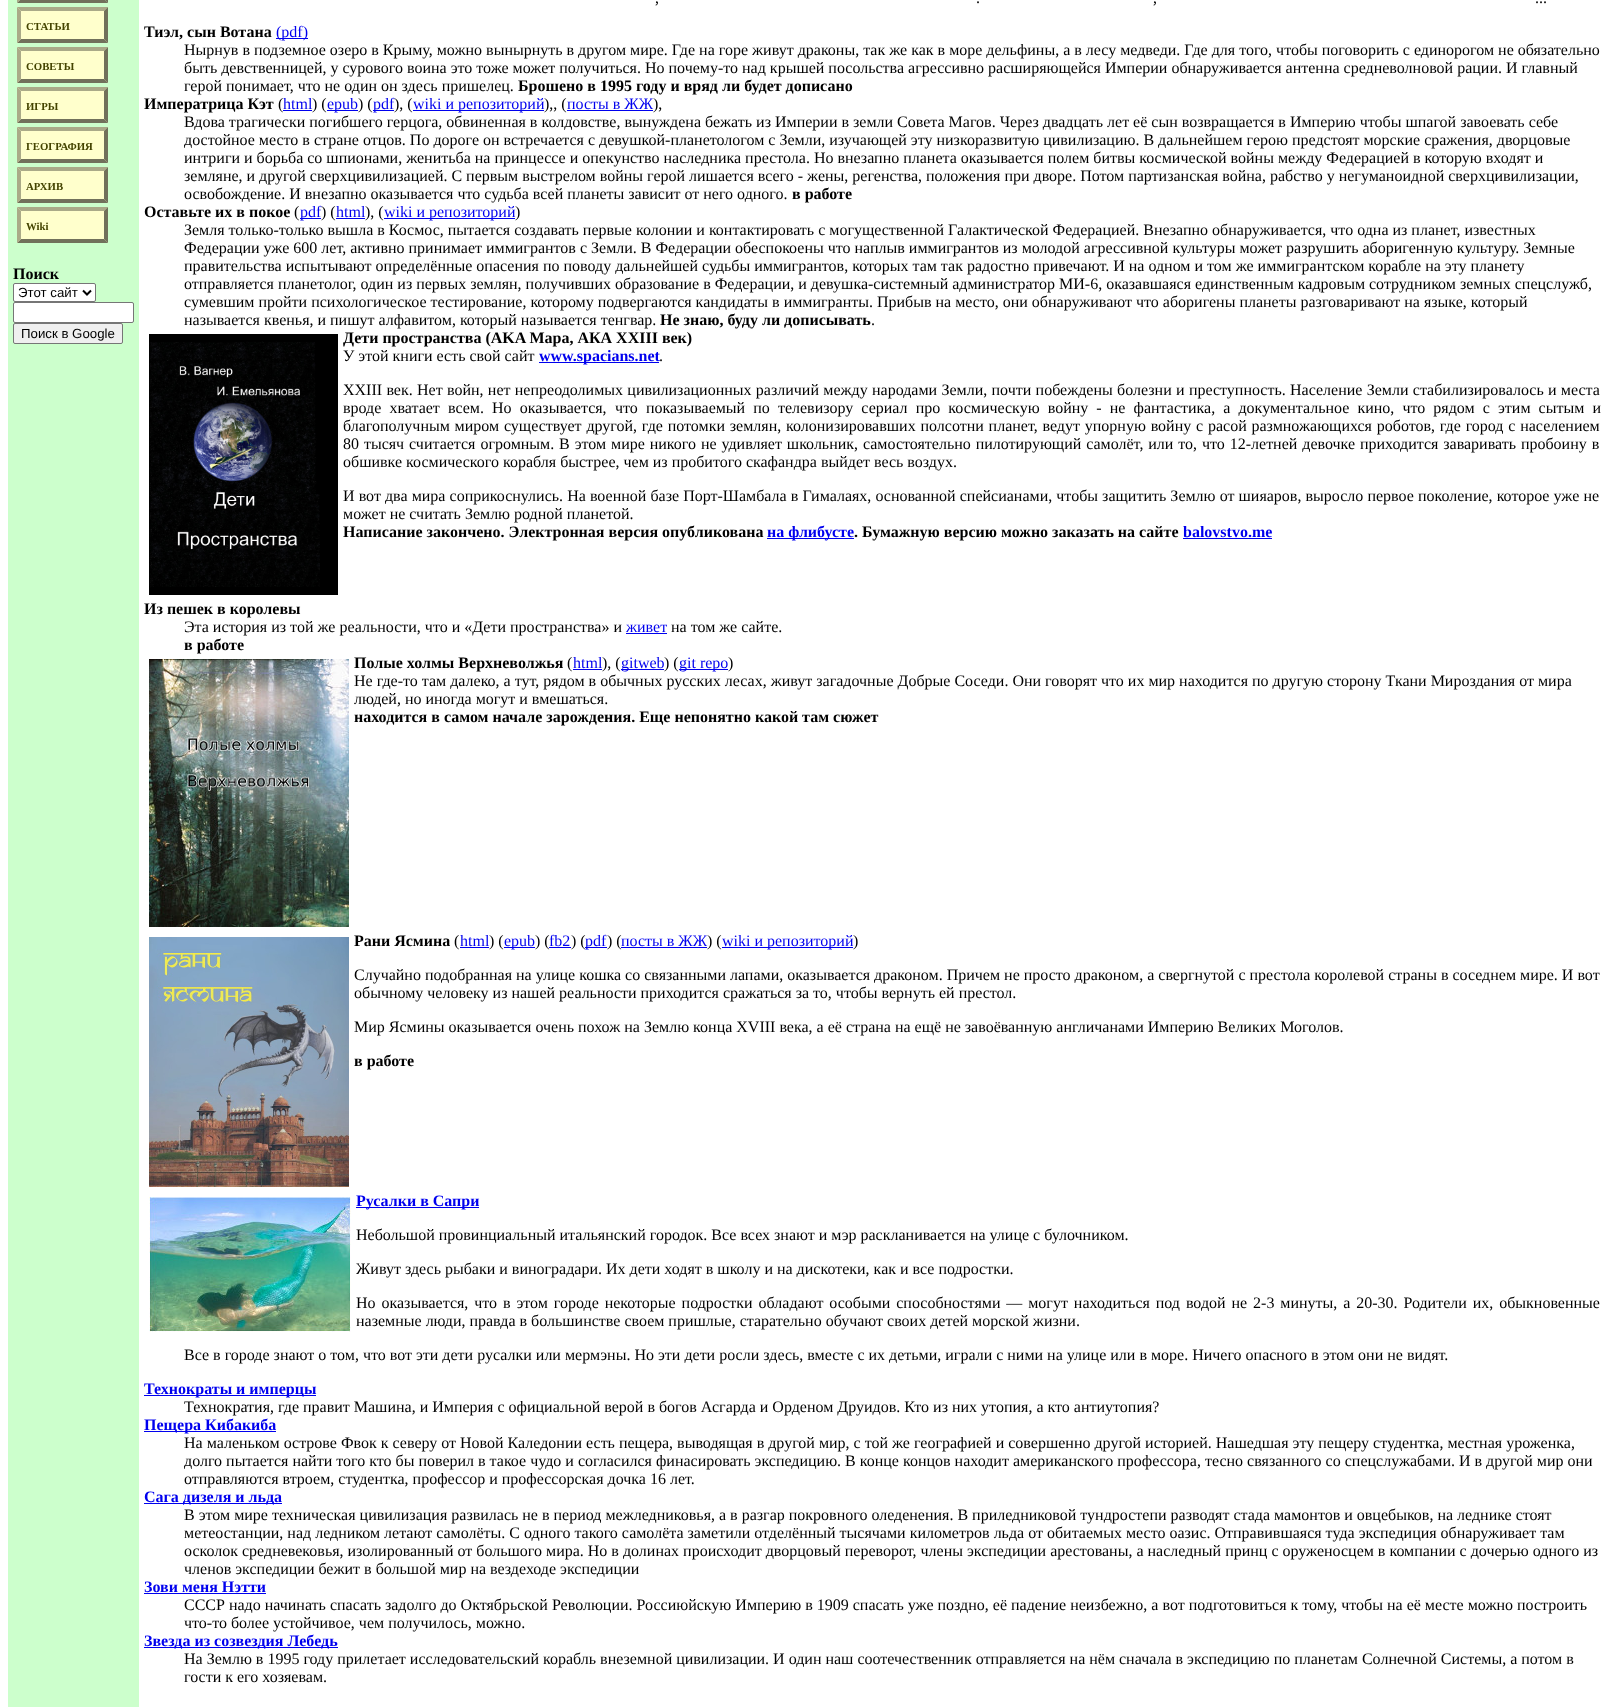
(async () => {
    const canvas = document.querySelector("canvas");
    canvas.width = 1613;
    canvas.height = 1707;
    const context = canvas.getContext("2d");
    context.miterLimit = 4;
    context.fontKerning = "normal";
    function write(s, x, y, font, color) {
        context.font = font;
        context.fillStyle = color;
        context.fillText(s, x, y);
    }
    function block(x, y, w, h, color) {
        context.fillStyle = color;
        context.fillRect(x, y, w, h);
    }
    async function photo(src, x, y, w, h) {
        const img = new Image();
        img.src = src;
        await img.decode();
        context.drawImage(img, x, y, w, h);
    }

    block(0, 0, 1613, 1707, "rgb(255, 255, 255)");
    block(8, 0, 131, 1707, "rgb(204, 255, 204)");
    context.fillStyle = "rgb(113, 113, 91)";
    context.beginPath();
    context.moveTo(108, -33);
    context.lineTo(108, 3);
    context.lineTo(104, -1);
    context.lineTo(104, -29);
    context.closePath();
    context.fill();
    context.beginPath();
    context.moveTo(108, 3);
    context.lineTo(17, 3);
    context.lineTo(21, -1);
    context.lineTo(104, -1);
    context.closePath();
    context.fill();
    context.fillStyle = "rgb(170, 170, 136)";
    context.beginPath();
    context.moveTo(17, 3);
    context.lineTo(17, -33);
    context.lineTo(21, -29);
    context.lineTo(21, -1);
    context.closePath();
    context.fill();
    block(17, 7, 91, 36, "rgb(255, 255, 204)");
    context.fillStyle = "rgb(170, 170, 136)";
    context.beginPath();
    context.moveTo(17, 7);
    context.lineTo(108, 7);
    context.lineTo(104, 11);
    context.lineTo(21, 11);
    context.closePath();
    context.fill();
    context.fillStyle = "rgb(113, 113, 91)";
    context.beginPath();
    context.moveTo(108, 7);
    context.lineTo(108, 43);
    context.lineTo(104, 39);
    context.lineTo(104, 11);
    context.closePath();
    context.fill();
    context.beginPath();
    context.moveTo(108, 43);
    context.lineTo(17, 43);
    context.lineTo(21, 39);
    context.lineTo(104, 39);
    context.closePath();
    context.fill();
    context.fillStyle = "rgb(170, 170, 136)";
    context.beginPath();
    context.moveTo(17, 43);
    context.lineTo(17, 7);
    context.lineTo(21, 11);
    context.lineTo(21, 39);
    context.closePath();
    context.fill();
    write("СТАТЬИ", 26, 30, "bold 10.75px Liberation Serif", "rgb(68, 68, 0)");
    block(17, 47, 91, 36, "rgb(255, 255, 204)");
    context.fillStyle = "rgb(170, 170, 136)";
    context.beginPath();
    context.moveTo(17, 47);
    context.lineTo(108, 47);
    context.lineTo(104, 51);
    context.lineTo(21, 51);
    context.closePath();
    context.fill();
    context.fillStyle = "rgb(113, 113, 91)";
    context.beginPath();
    context.moveTo(108, 47);
    context.lineTo(108, 83);
    context.lineTo(104, 79);
    context.lineTo(104, 51);
    context.closePath();
    context.fill();
    context.beginPath();
    context.moveTo(108, 83);
    context.lineTo(17, 83);
    context.lineTo(21, 79);
    context.lineTo(104, 79);
    context.closePath();
    context.fill();
    context.fillStyle = "rgb(170, 170, 136)";
    context.beginPath();
    context.moveTo(17, 83);
    context.lineTo(17, 47);
    context.lineTo(21, 51);
    context.lineTo(21, 79);
    context.closePath();
    context.fill();
    write("СОВЕТЫ", 26, 70, "bold 10.75px Liberation Serif", "rgb(68, 68, 0)");
    block(17, 87, 91, 36, "rgb(255, 255, 204)");
    context.fillStyle = "rgb(170, 170, 136)";
    context.beginPath();
    context.moveTo(17, 87);
    context.lineTo(108, 87);
    context.lineTo(104, 91);
    context.lineTo(21, 91);
    context.closePath();
    context.fill();
    context.fillStyle = "rgb(113, 113, 91)";
    context.beginPath();
    context.moveTo(108, 87);
    context.lineTo(108, 123);
    context.lineTo(104, 119);
    context.lineTo(104, 91);
    context.closePath();
    context.fill();
    context.beginPath();
    context.moveTo(108, 123);
    context.lineTo(17, 123);
    context.lineTo(21, 119);
    context.lineTo(104, 119);
    context.closePath();
    context.fill();
    context.fillStyle = "rgb(170, 170, 136)";
    context.beginPath();
    context.moveTo(17, 123);
    context.lineTo(17, 87);
    context.lineTo(21, 91);
    context.lineTo(21, 119);
    context.closePath();
    context.fill();
    write("ИГРЫ", 26, 110, "bold 10.75px Liberation Serif", "rgb(68, 68, 0)");
    block(17, 127, 91, 36, "rgb(255, 255, 204)");
    context.fillStyle = "rgb(170, 170, 136)";
    context.beginPath();
    context.moveTo(17, 127);
    context.lineTo(108, 127);
    context.lineTo(104, 131);
    context.lineTo(21, 131);
    context.closePath();
    context.fill();
    context.fillStyle = "rgb(113, 113, 91)";
    context.beginPath();
    context.moveTo(108, 127);
    context.lineTo(108, 163);
    context.lineTo(104, 159);
    context.lineTo(104, 131);
    context.closePath();
    context.fill();
    context.beginPath();
    context.moveTo(108, 163);
    context.lineTo(17, 163);
    context.lineTo(21, 159);
    context.lineTo(104, 159);
    context.closePath();
    context.fill();
    context.fillStyle = "rgb(170, 170, 136)";
    context.beginPath();
    context.moveTo(17, 163);
    context.lineTo(17, 127);
    context.lineTo(21, 131);
    context.lineTo(21, 159);
    context.closePath();
    context.fill();
    write("ГЕОГРАФИЯ", 26, 150, "bold 10.75px Liberation Serif", "rgb(68, 68, 0)");
    block(17, 167, 91, 36, "rgb(255, 255, 204)");
    context.fillStyle = "rgb(170, 170, 136)";
    context.beginPath();
    context.moveTo(17, 167);
    context.lineTo(108, 167);
    context.lineTo(104, 171);
    context.lineTo(21, 171);
    context.closePath();
    context.fill();
    context.fillStyle = "rgb(113, 113, 91)";
    context.beginPath();
    context.moveTo(108, 167);
    context.lineTo(108, 203);
    context.lineTo(104, 199);
    context.lineTo(104, 171);
    context.closePath();
    context.fill();
    context.beginPath();
    context.moveTo(108, 203);
    context.lineTo(17, 203);
    context.lineTo(21, 199);
    context.lineTo(104, 199);
    context.closePath();
    context.fill();
    context.fillStyle = "rgb(170, 170, 136)";
    context.beginPath();
    context.moveTo(17, 203);
    context.lineTo(17, 167);
    context.lineTo(21, 171);
    context.lineTo(21, 199);
    context.closePath();
    context.fill();
    write("АРХИВ", 26, 190, "bold 10.75px Liberation Serif", "rgb(68, 68, 0)");
    block(17, 207, 91, 36, "rgb(255, 255, 204)");
    context.fillStyle = "rgb(170, 170, 136)";
    context.beginPath();
    context.moveTo(17, 207);
    context.lineTo(108, 207);
    context.lineTo(104, 211);
    context.lineTo(21, 211);
    context.closePath();
    context.fill();
    context.fillStyle = "rgb(113, 113, 91)";
    context.beginPath();
    context.moveTo(108, 207);
    context.lineTo(108, 243);
    context.lineTo(104, 239);
    context.lineTo(104, 211);
    context.closePath();
    context.fill();
    context.beginPath();
    context.moveTo(108, 243);
    context.lineTo(17, 243);
    context.lineTo(21, 239);
    context.lineTo(104, 239);
    context.closePath();
    context.fill();
    context.fillStyle = "rgb(170, 170, 136)";
    context.beginPath();
    context.moveTo(17, 243);
    context.lineTo(17, 207);
    context.lineTo(21, 211);
    context.lineTo(21, 239);
    context.closePath();
    context.fill();
    write("Wiki", 26, 230, "bold 10.75px Liberation Serif", "rgb(68, 68, 0)");
    write("Поиск", 13, 279, "bold 16px Liberation Serif", "rgb(0, 0, 0)");
    context.fillStyle = "rgb(255, 255, 255)";
    context.beginPath();
    context.roundRect(13.5, 283.5, 82, 18, 1.5);
    context.fill();
    context.strokeStyle = "rgb(118, 118, 118)";
    context.stroke();
    context.beginPath();
    context.moveTo(83, 290.5);
    context.lineTo(87, 294.5);
    context.lineTo(91, 290.5);
    context.strokeStyle = "rgb(0, 0, 0)";
    context.lineWidth = 2;
    context.stroke();
    write("Этот сайт", 18, 297, "13.25px Liberation Sans", "rgb(0, 0, 0)");
    context.fillStyle = "rgb(255, 255, 255)";
    context.beginPath();
    context.roundRect(13.5, 302.5, 120, 20, 1.5);
    context.fill();
    context.strokeStyle = "rgb(118, 118, 118)";
    context.lineWidth = 1;
    context.stroke();
    context.fillStyle = "rgb(239, 239, 239)";
    context.beginPath();
    context.roundRect(13.5, 323.5, 109, 20, 1.5);
    context.fill();
    context.stroke();
    write("Поиск в Google", 21, 338, "13.25px Liberation Sans", "rgb(0, 0, 0)");
    write(",", 655, 3, "16px Liberation Serif", "rgb(0, 0, 0)");
    write(".", 976, 3, "16px Liberation Serif", "rgb(0, 0, 0)");
    write(",", 1153, 3, "16px Liberation Serif", "rgb(0, 0, 0)");
    write("...", 1535, 3, "16px Liberation Serif", "rgb(0, 0, 0)");
    write("Тиэл, сын Вотана", 144, 37, "bold 16px Liberation Serif", "rgb(0, 0, 0)");
    block(276, 38, 32, 1, "rgb(0, 0, 238)");
    write("(pdf)", 276, 37, "16px Liberation Serif", "rgb(0, 0, 238)");
    write("Нырнув в подземное озеро в Крыму, можно вынырнуть в другом мире. Где на горе живут драконы, так же как в море дельфины, а в лесу медведи. Где для того, чтобы поговорить с единорогом не обязательно", 184, 55, "16px Liberation Serif", "rgb(0, 0, 0)");
    write("быть девственницей, у сурового воина это тоже может получиться. Но почему-то над крышей посольства агрессивно расширяющейся Империи обнаруживается антенна средневолновой рации. И главный", 184, 73, "16px Liberation Serif", "rgb(0, 0, 0)");
    write("герой понимает, что не один он здесь пришелец.", 184, 91, "16px Liberation Serif", "rgb(0, 0, 0)");
    write("Брошено в 1995 году и вряд ли будет дописано", 518, 91, "bold 16px Liberation Serif", "rgb(0, 0, 0)");
    write("Императрица Кэт", 144, 109, "bold 16px Liberation Serif", "rgb(0, 0, 0)");
    write("(", 278, 109, "16px Liberation Serif", "rgb(0, 0, 0)");
    write("html", 283, 109, "16px Liberation Serif", "rgb(0, 0, 238)");
    block(283, 110, 29, 1, "rgb(0, 0, 238)");
    write(") (", 312, 109, "16px Liberation Serif", "rgb(0, 0, 0)");
    block(327, 110, 31, 1, "rgb(0, 0, 238)");
    write("epub", 327, 109, "16px Liberation Serif", "rgb(0, 0, 238)");
    write(") (", 358, 109, "16px Liberation Serif", "rgb(0, 0, 0)");
    block(373, 110, 21, 1, "rgb(0, 0, 238)");
    write("pdf", 373, 109, "16px Liberation Serif", "rgb(0, 0, 238)");
    write("), (", 394, 109, "16px Liberation Serif", "rgb(0, 0, 0)");
    block(413, 110, 131, 1, "rgb(0, 0, 238)");
    write("wiki и репозиторий", 413, 109, "16px Liberation Serif", "rgb(0, 0, 238)");
    write("),, (", 544, 109, "16px Liberation Serif", "rgb(0, 0, 0)");
    write("посты в ЖЖ", 567, 109, "16px Liberation Serif", "rgb(0, 0, 238)");
    block(567, 110, 86, 1, "rgb(0, 0, 238)");
    write("),", 653, 109, "16px Liberation Serif", "rgb(0, 0, 0)");
    write("Вдова трагически погибшего герцога, обвиненная в колдовстве, вынуждена бежать из Империи в земли Совета Магов. Через двадцать лет её сын возвращается в Империю чтобы шпагой завоевать себе", 184, 127, "16px Liberation Serif", "rgb(0, 0, 0)");
    write("достойное место в стране отцов. По дороге он встречается с девушкой-планетологом с Земли, изучающей эту низкоразвитую цивилизацию. В дальнейшем герою предстоят морские сражения, дворцовые", 184, 145, "16px Liberation Serif", "rgb(0, 0, 0)");
    write("интриги и борьба со шпионами, женитьба на принцессе и опекунство наследника престола. Но внезапно планета оказывается полем битвы космической войны между Федерацией в которую входят и", 184, 163, "16px Liberation Serif", "rgb(0, 0, 0)");
    write("земляне, и другой сверхцивилизацией. С первым выстрелом войны герой лишается всего - жены, регенства, положения при дворе. Потом партизанская война, рабство у негуманоидной сверхцивилизации,", 184, 181, "16px Liberation Serif", "rgb(0, 0, 0)");
    write("освобождение. И внезапно оказывается что судьба всей планеты зависит от него одного.", 184, 199, "16px Liberation Serif", "rgb(0, 0, 0)");
    write("в работе", 792, 199, "bold 16px Liberation Serif", "rgb(0, 0, 0)");
    write("Оставьте их в покое", 144, 217, "bold 16px Liberation Serif", "rgb(0, 0, 0)");
    write("(", 294, 217, "16px Liberation Serif", "rgb(0, 0, 0)");
    block(300, 218, 21, 1, "rgb(0, 0, 238)");
    write("pdf", 300, 217, "16px Liberation Serif", "rgb(0, 0, 238)");
    write(") (", 321, 217, "16px Liberation Serif", "rgb(0, 0, 0)");
    write("html", 336, 217, "16px Liberation Serif", "rgb(0, 0, 238)");
    block(336, 218, 29, 1, "rgb(0, 0, 238)");
    write("), (", 365, 217, "16px Liberation Serif", "rgb(0, 0, 0)");
    block(384, 218, 131, 1, "rgb(0, 0, 238)");
    write("wiki и репозиторий", 384, 217, "16px Liberation Serif", "rgb(0, 0, 238)");
    write(")", 515, 217, "16px Liberation Serif", "rgb(0, 0, 0)");
    write("Земля только-только вышла в Космос, пытается создавать первые колонии и контактировать с могущественной Галактической Федерацией. Внезапно обнаруживается, что одна из планет, известных", 184, 235, "16px Liberation Serif", "rgb(0, 0, 0)");
    write("Федерации уже 600 лет, активно принимает иммигрантов с Земли. В Федерации обеспокоены что наплыв иммигрантов из молодой агрессивной культуры может разрушить аборигенную культуру. Земные", 184, 253, "16px Liberation Serif", "rgb(0, 0, 0)");
    write("правительства испытывают определённые опасения по поводу дальнейшей судьбы иммигрантов, которых там так радостно привечают. И на одном и том же иммигрантском корабле на эту планету", 184, 271, "16px Liberation Serif", "rgb(0, 0, 0)");
    write("отправляется планетолог, один из первых землян, получивших образование в Федерации, и девушка-системный администратор МИ-6, оказавшаяся единственным кадровым сотрудником земных спецслужб,", 184, 289, "16px Liberation Serif", "rgb(0, 0, 0)");
    write("сумевшим пройти психологическое тестирование, которому подвергаются кандидаты в иммигранты. Прибыв на место, они обнаруживают что аборигены планеты разговаривают на языке, который", 184, 307, "16px Liberation Serif", "rgb(0, 0, 0)");
    write("называется квенья, и пишут алфавитом, который называется тенгвар.", 184, 325, "16px Liberation Serif", "rgb(0, 0, 0)");
    write("Не знаю, буду ли дописывать", 660, 325, "bold 16px Liberation Serif", "rgb(0, 0, 0)");
    write(".", 871, 325, "16px Liberation Serif", "rgb(0, 0, 0)");
    await photo("media/1.png", 149, 334, 189, 261);
    write("Дети пространства (AKA Мара, АКА XXIII век)", 343, 343, "bold 16px Liberation Serif", "rgb(0, 0, 0)");
    write("У этой книги есть свой сайт", 343, 361, "16px Liberation Serif", "rgb(0, 0, 0)");
    block(539, 362, 120, 1, "rgb(0, 0, 238)");
    write("www.spacians.net", 539, 361, "bold 16px Liberation Serif", "rgb(0, 0, 238)");
    write(".", 659, 361, "16px Liberation Serif", "rgb(0, 0, 0)");
    context.wordSpacing = "0.3px";
    write("XXIII век. Нет войн, нет непреодолимых цивилизационных различий между народами Земли, почти побеждены болезни и преступность. Население Земли стабилизировалось и места", 343, 395, "16px Liberation Serif", "rgb(0, 0, 0)");
    context.wordSpacing = "4.1px";
    write("вроде хватает всем. Но оказывается,", 343, 413, "16px Liberation Serif", "rgb(0, 0, 0)");
    write("что показываемый по телевизору сериал про космическую войну - не фантастика, а документальное кино, что рядом с этим сытым и", 615, 413, "16px Liberation Serif", "rgb(0, 0, 0)");
    context.wordSpacing = "0.8px";
    write("благополучным миром существует другой, где потомки землян, колонизировавших полсотни планет, ведут упорную войну с расой размножающихся роботов, где город с населением", 343, 431, "16px Liberation Serif", "rgb(0, 0, 0)");
    context.wordSpacing = "0.9px";
    write("80 тысяч считается огромным. В этом мире никого не удивляет школьник, самостоятельно пилотирующий самолёт, или то, что 12-летней девочке приходится заваривать пробоину в", 343, 449, "16px Liberation Serif", "rgb(0, 0, 0)");
    context.wordSpacing = "0px";
    write("обшивке космического корабля быстрее, чем из пробитого скафандра выйдет весь воздух.", 343, 467, "16px Liberation Serif", "rgb(0, 0, 0)");
    context.wordSpacing = "0.1px";
    write("И вот два мира соприкоснулись. На военной базе Порт-Шамбала в Гималаях, основанной спейсианами, чтобы защитить Землю от шияаров, выросло первое поколение, которое уже не", 343, 501, "16px Liberation Serif", "rgb(0, 0, 0)");
    context.wordSpacing = "0px";
    write("может не считать Землю родной планетой.", 343, 519, "16px Liberation Serif", "rgb(0, 0, 0)");
    write("Написание закончено. Электронная версия опубликована", 343, 537, "bold 16px Liberation Serif", "rgb(0, 0, 0)");
    block(767, 538, 87, 1, "rgb(0, 0, 238)");
    write("на флибусте", 767, 537, "bold 16px Liberation Serif", "rgb(0, 0, 238)");
    write(". Бумажную версию можно заказать на сайте", 854, 537, "bold 16px Liberation Serif", "rgb(0, 0, 0)");
    block(1183, 538, 89, 1, "rgb(0, 0, 238)");
    write("balovstvo.me", 1183, 537, "bold 16px Liberation Serif", "rgb(0, 0, 238)");
    write("Из пешек в королевы", 144, 614, "bold 16px Liberation Serif", "rgb(0, 0, 0)");
    write("Эта история из той же реальности, что и «Дети пространства» и", 184, 632, "16px Liberation Serif", "rgb(0, 0, 0)");
    write("живет", 626, 632, "16px Liberation Serif", "rgb(0, 0, 238)");
    block(626, 633, 41, 1, "rgb(0, 0, 238)");
    write("на том же сайте.", 671, 632, "16px Liberation Serif", "rgb(0, 0, 0)");
    write("в работе", 184, 650, "bold 16px Liberation Serif", "rgb(0, 0, 0)");
    await photo("media/2.png", 149, 659, 200, 268);
    write("Полые холмы Верхневолжья", 354, 668, "bold 16px Liberation Serif", "rgb(0, 0, 0)");
    write("(", 567, 668, "16px Liberation Serif", "rgb(0, 0, 0)");
    write("html", 573, 668, "16px Liberation Serif", "rgb(0, 0, 238)");
    block(573, 669, 29, 1, "rgb(0, 0, 238)");
    write("), (", 602, 668, "16px Liberation Serif", "rgb(0, 0, 0)");
    block(621, 669, 43, 1, "rgb(0, 0, 238)");
    write("gitweb", 621, 668, "16px Liberation Serif", "rgb(0, 0, 238)");
    write(") (", 664, 668, "16px Liberation Serif", "rgb(0, 0, 0)");
    block(679, 669, 49, 1, "rgb(0, 0, 238)");
    write("git repo", 679, 668, "16px Liberation Serif", "rgb(0, 0, 238)");
    write(")", 728, 668, "16px Liberation Serif", "rgb(0, 0, 0)");
    write("Не где-то там далеко, а тут, рядом в обычных русских лесах, живут загадочные Добрые Соседи. Они говорят что их мир находится по другую сторону Ткани Мироздания от мира", 354, 686, "16px Liberation Serif", "rgb(0, 0, 0)");
    write("людей, но иногда могут и вмешаться.", 354, 704, "16px Liberation Serif", "rgb(0, 0, 0)");
    write("находится в самом начале зарождения. Еще непонятно какой там сюжет", 354, 722, "bold 16px Liberation Serif", "rgb(0, 0, 0)");
    await photo("media/3.png", 149, 937, 200, 250);
    write("Рани Ясмина", 354, 946, "bold 16px Liberation Serif", "rgb(0, 0, 0)");
    write("(", 454, 946, "16px Liberation Serif", "rgb(0, 0, 0)");
    write("html", 460, 946, "16px Liberation Serif", "rgb(0, 0, 238)");
    block(460, 947, 29, 1, "rgb(0, 0, 238)");
    write(") (", 489, 946, "16px Liberation Serif", "rgb(0, 0, 0)");
    block(504, 947, 31, 1, "rgb(0, 0, 238)");
    write("epub", 504, 946, "16px Liberation Serif", "rgb(0, 0, 238)");
    write(") (", 535, 946, "16px Liberation Serif", "rgb(0, 0, 0)");
    write("fb2", 549, 946, "16px Liberation Serif", "rgb(0, 0, 238)");
    block(549, 947, 22, 1, "rgb(0, 0, 238)");
    write(") (", 571, 946, "16px Liberation Serif", "rgb(0, 0, 0)");
    block(585, 947, 22, 1, "rgb(0, 0, 238)");
    write("pdf", 585, 946, "16px Liberation Serif", "rgb(0, 0, 238)");
    write(") (", 607, 946, "16px Liberation Serif", "rgb(0, 0, 0)");
    write("посты в ЖЖ", 621, 946, "16px Liberation Serif", "rgb(0, 0, 238)");
    block(621, 947, 86, 1, "rgb(0, 0, 238)");
    write(") (", 707, 946, "16px Liberation Serif", "rgb(0, 0, 0)");
    block(722, 947, 131, 1, "rgb(0, 0, 238)");
    write("wiki и репозиторий", 722, 946, "16px Liberation Serif", "rgb(0, 0, 238)");
    write(")", 853, 946, "16px Liberation Serif", "rgb(0, 0, 0)");
    write("Cлучайно подобранная на улице кошка со связанными лапами, оказывается драконом. Причем не просто драконом, а свергнутой с престола королевой страны в соседнем мире. И вот", 354, 980, "16px Liberation Serif", "rgb(0, 0, 0)");
    write("обычному человеку из нашей реальности приходится сражаться за то, чтобы вернуть ей престол.", 354, 998, "16px Liberation Serif", "rgb(0, 0, 0)");
    write("Мир Ясмины оказывается очень похож на Землю конца XVIII века, а её страна на ещё не завоёванную англичанами Империю Великих Моголов.", 354, 1032, "16px Liberation Serif", "rgb(0, 0, 0)");
    write("в работе", 354, 1066, "bold 16px Liberation Serif", "rgb(0, 0, 0)");
    await photo("media/4.png", 149, 1197, 202, 135);
    block(356, 1207, 123, 1, "rgb(0, 0, 238)");
    write("Русалки в Сапри", 356, 1206, "bold 16px Liberation Serif", "rgb(0, 0, 238)");
    write("Небольшой провинциальный итальянский городок. Все всех знают и мэр раскланивается на улице с булочником.", 356, 1240, "16px Liberation Serif", "rgb(0, 0, 0)");
    write("Живут здесь рыбаки и виноградари. Их дети ходят в школу и на дискотеки, как и все подростки.", 356, 1274, "16px Liberation Serif", "rgb(0, 0, 0)");
    context.wordSpacing = "1.9px";
    write("Но оказывается, что в этом городе некоторые подростки обладают особыми способностями — могут находиться под водой не 2-3 минуты, а 20-30. Родители их, обыкновенные", 356, 1308, "16px Liberation Serif", "rgb(0, 0, 0)");
    context.wordSpacing = "0px";
    write("наземные люди, правда в большинстве своем пришлые, старательно обучают своих детей морской жизни.", 356, 1326, "16px Liberation Serif", "rgb(0, 0, 0)");
    write("Все в городе знают о том, что вот эти дети русалки или мермэны. Но эти дети росли здесь, вместе с их детьми, играли с ними на улице или в море. Ничего опасного в этом они не видят.", 184, 1360, "16px Liberation Serif", "rgb(0, 0, 0)");
    block(144, 1395, 172, 1, "rgb(0, 0, 238)");
    write("Технократы и имперцы", 144, 1394, "bold 16px Liberation Serif", "rgb(0, 0, 238)");
    write("Технократия, где правит Машина, и Империя с официальной верой в богов Асгарда и Орденом Друидов. Кто из них утопия, а кто антиутопия?", 184, 1412, "16px Liberation Serif", "rgb(0, 0, 0)");
    block(144, 1431, 132, 1, "rgb(0, 0, 238)");
    write("Пещера Кибакиба", 144, 1430, "bold 16px Liberation Serif", "rgb(0, 0, 238)");
    write("На маленьком острове Фвок к северу от Новой Каледонии есть пещера, выводящая в другой мир, с той же географией и совершенно другой историей. Нашедшая эту пещеру студентка, местная уроженка,", 184, 1448, "16px Liberation Serif", "rgb(0, 0, 0)");
    write("долго пытается найти того кто бы поверил в такое чудо и согласился финасировать экспедицию. В конце концов находит американского профессора, тесно связанного со спецслужабами. И в другой мир они", 184, 1466, "16px Liberation Serif", "rgb(0, 0, 0)");
    write("отправляются втроем, студентка, профессор и профессорская дочка 16 лет.", 184, 1484, "16px Liberation Serif", "rgb(0, 0, 0)");
    block(144, 1503, 138, 1, "rgb(0, 0, 238)");
    write("Сага дизеля и льда", 144, 1502, "bold 16px Liberation Serif", "rgb(0, 0, 238)");
    write("В этом мире техническая цивилизация развилась не в период межледниковья, а в разгар покровного оледенения. В приледниковой тундростепи разводят стада мамонтов и овцебыков, на леднике стоят", 184, 1520, "16px Liberation Serif", "rgb(0, 0, 0)");
    write("метеостанции, над ледником летают самолёты. С одного такого самолёта заметили отделённый тысячами километров льда от обитаемых место оазис. Отправившаяся туда экспедиция обнаруживает там", 184, 1538, "16px Liberation Serif", "rgb(0, 0, 0)");
    write("осколок средневековья, изолированный от большого мира. Но в долинах происходит дворцовый переворот, члены экспедиции арестованы, а наследный принц с оруженосцем в компании с дочерью одного из", 184, 1556, "16px Liberation Serif", "rgb(0, 0, 0)");
    write("членов экспедиции бежит в большой мир на вездеходе экспедиции", 184, 1574, "16px Liberation Serif", "rgb(0, 0, 0)");
    write("Зови меня Нэтти", 144, 1592, "bold 16px Liberation Serif", "rgb(0, 0, 238)");
    block(144, 1593, 122, 1, "rgb(0, 0, 238)");
    write("CCСР надо начинать спасать задолго до Октябрьской Революции. Россиюйскую Империю в 1909 спасать уже поздно, её падение неизбежно, а вот подготовиться к тому, чтобы на её месте можно построить", 184, 1610, "16px Liberation Serif", "rgb(0, 0, 0)");
    write("что-то более устойчивое, чем получилось, можно.", 184, 1628, "16px Liberation Serif", "rgb(0, 0, 0)");
    block(144, 1647, 194, 1, "rgb(0, 0, 238)");
    write("Звезда из созвездия Лебедь", 144, 1646, "bold 16px Liberation Serif", "rgb(0, 0, 238)");
    write("На Землю в 1995 году прилетает исследовательский корабль внеземной цивилизации. И один наш соотечественник отправляется на нём сначала в экспедицию по планетам Солнечной Системы, а потом в", 184, 1664, "16px Liberation Serif", "rgb(0, 0, 0)");
    write("гости к его хозяевам.", 184, 1682, "16px Liberation Serif", "rgb(0, 0, 0)");
})();
